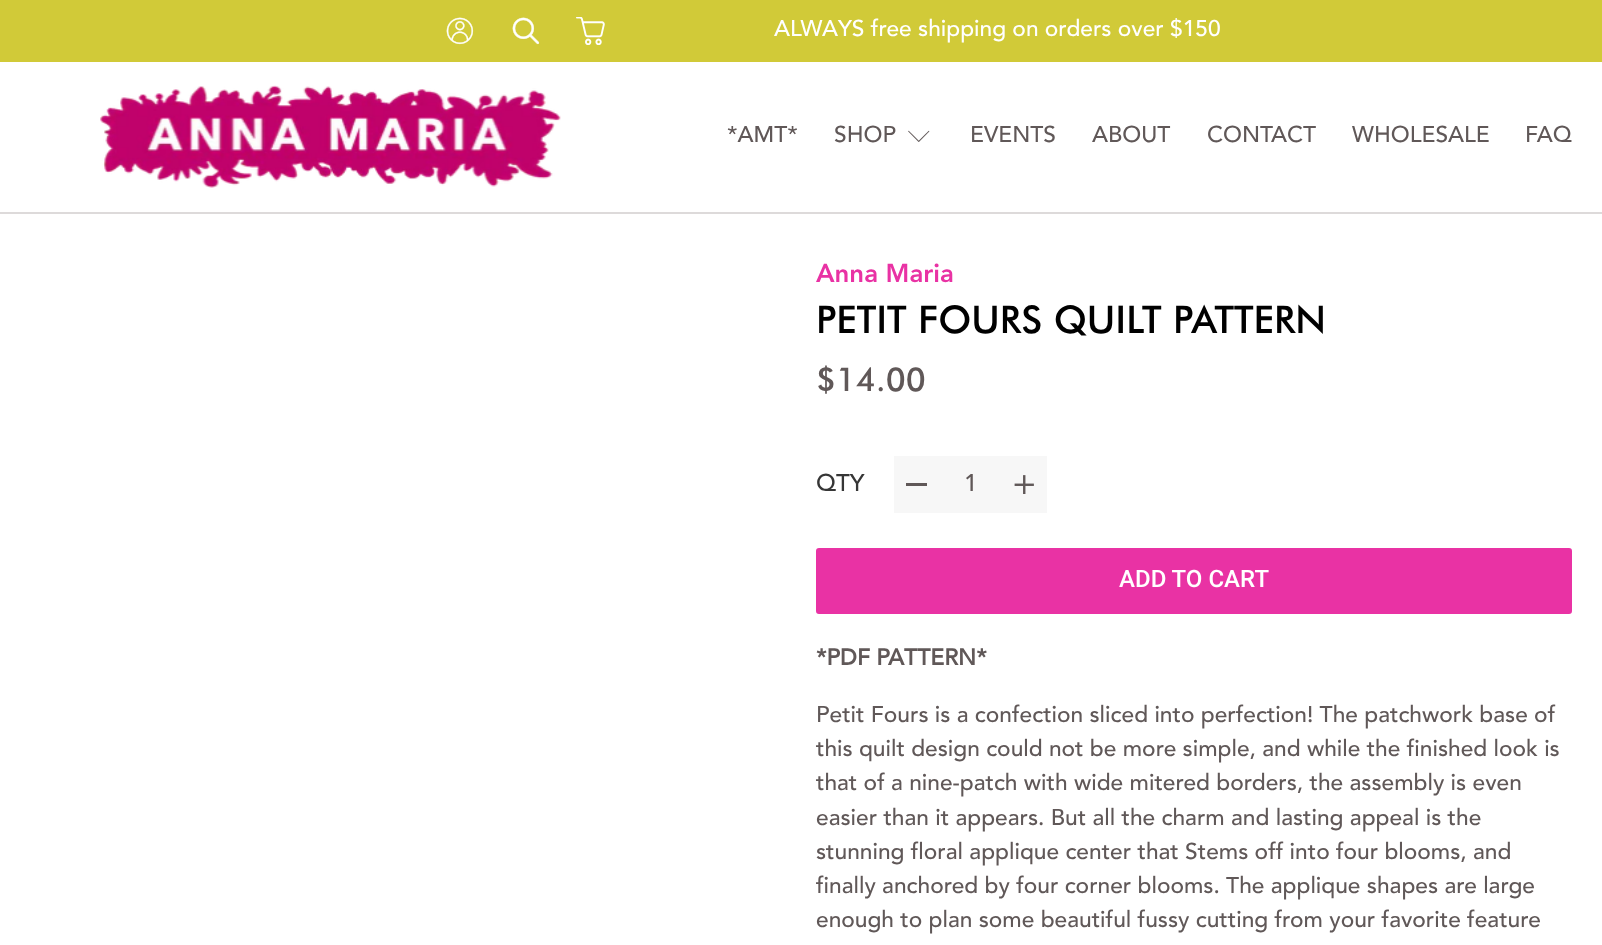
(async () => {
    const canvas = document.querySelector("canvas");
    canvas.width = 1602;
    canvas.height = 945;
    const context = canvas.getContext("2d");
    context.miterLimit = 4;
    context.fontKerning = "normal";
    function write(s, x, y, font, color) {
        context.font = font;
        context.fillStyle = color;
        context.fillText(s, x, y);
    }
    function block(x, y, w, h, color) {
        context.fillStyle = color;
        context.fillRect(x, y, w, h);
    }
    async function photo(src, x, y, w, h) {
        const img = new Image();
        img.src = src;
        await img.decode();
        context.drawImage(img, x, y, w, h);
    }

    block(0, 0, 1602, 945, "rgb(255, 255, 255)");
    block(0, 0, 1602, 62, "rgb(209, 202, 56)");
    await photo("media/1.png", 446, 17, 28, 28);
    await photo("media/2.png", 512, 17, 28, 28);
    await photo("media/3.png", 576, 17, 29, 28);
    write("ALWAYS free shipping on orders over $150", 774, 36, "500 22.75px Avenir", "rgb(255, 255, 255)");
    block(0, 212, 1602, 2, "rgb(221, 218, 218)");
    await photo("media/4.png", 100, 85, 461, 103);
    write("*AMT*", 727, 142, "500 22.75px Avenir", "rgb(96, 88, 88)");
    write("SHOP", 834, 142, "500 22.75px Avenir", "rgb(96, 88, 88)");
    await photo("media/5.png", 908, 130, 22, 12);
    write("EVENTS", 970, 142, "500 22.75px Avenir", "rgb(96, 88, 88)");
    write("ABOUT", 1092, 142, "500 22.75px Avenir", "rgb(96, 88, 88)");
    write("CONTACT", 1207, 142, "500 22.75px Avenir", "rgb(96, 88, 88)");
    write("WHOLESALE", 1352, 142, "500 22.75px Avenir", "rgb(96, 88, 88)");
    write("FAQ", 1525, 142, "500 22.75px Avenir", "rgb(96, 88, 88)");
    write("Anna Maria", 816, 282, "900 25.75px Avenir", "rgb(233, 50, 164)");
    write("PETIT FOURS QUILT PATTERN", 816, 333, "500 38.25px Futura", "rgb(0, 0, 0)");
    write("$14.00", 816, 391, "500 33px Futura", "rgb(96, 88, 88)");
    write("QTY", 816, 491, "500 24px Avenir", "rgb(54, 54, 54)");
    block(894, 456, 153, 57, "rgb(247, 247, 247)");
    block(906, 483, 21, 3, "rgb(96, 88, 88)");
    write("1", 964, 491, "500 24px Avenir", "rgb(96, 88, 88)");
    await photo("media/6.png", 1014, 475, 20, 19);
    context.fillStyle = "rgb(233, 50, 164)";
    context.beginPath();
    context.roundRect(817, 549, 754, 64, 2);
    context.fill();
    context.strokeStyle = "rgb(233, 50, 164)";
    context.lineWidth = 2;
    context.stroke();
    write("ADD TO CART", 1119, 587, "500 24px Roboto", "rgb(255, 255, 255)");
    write("*PDF PATTERN*", 816, 665, "bold 22.75px Avenir", "rgb(96, 88, 88)");
    write("Petit Fours is a confection sliced into perfection! The patchwork base of", 816, 722, "500 22.75px Avenir", "rgb(96, 88, 88)");
    write("this quilt design could not be more simple, and while the finished look is", 816, 756, "500 22.75px Avenir", "rgb(96, 88, 88)");
    write("that of a nine-patch with wide mitered borders, the assembly is even", 816, 790, "500 22.75px Avenir", "rgb(96, 88, 88)");
    write("easier than it appears. But all the charm and lasting appeal is the", 816, 825, "500 22.75px Avenir", "rgb(96, 88, 88)");
    write("stunning floral applique center that Stems off into four blooms, and", 816, 859, "500 22.75px Avenir", "rgb(96, 88, 88)");
    write("finally anchored by four corner blooms. The applique shapes are large", 816, 893, "500 22.75px Avenir", "rgb(96, 88, 88)");
    write("enough to plan some beautiful fussy cutting from your favorite feature", 816, 927, "500 22.75px Avenir", "rgb(96, 88, 88)");
})();
